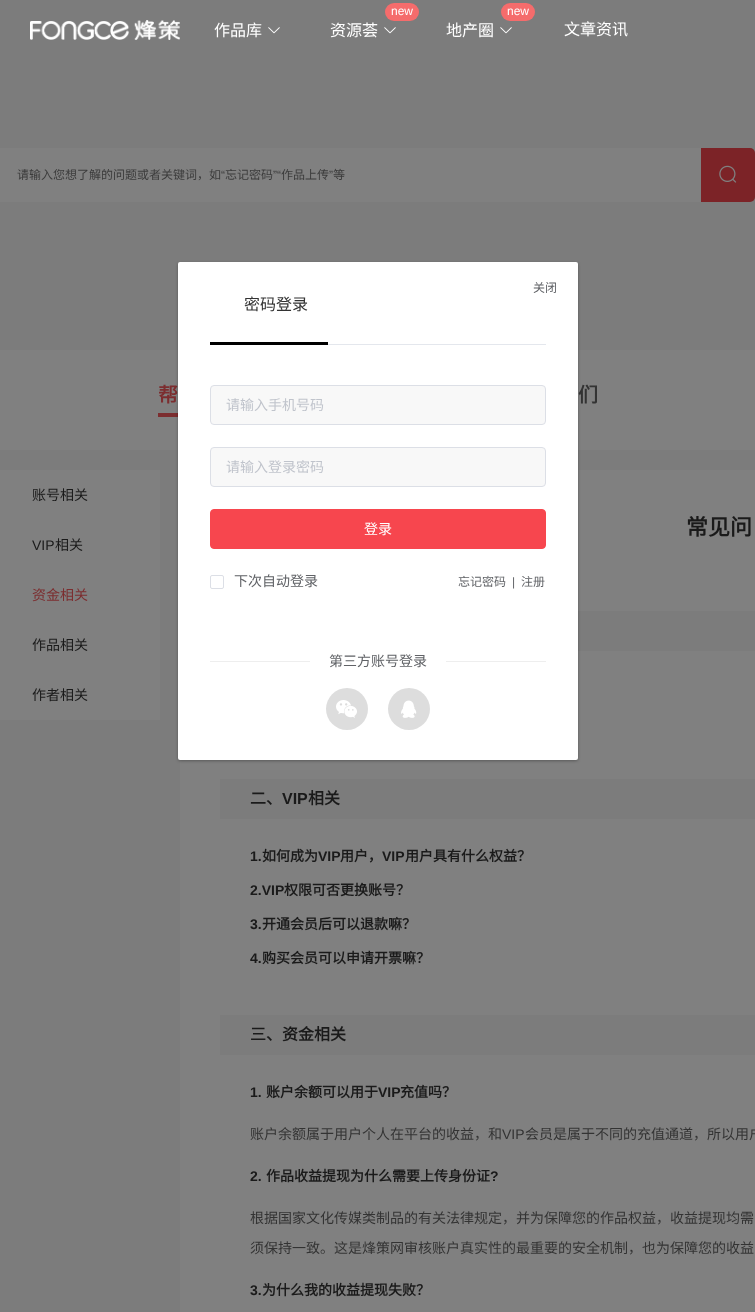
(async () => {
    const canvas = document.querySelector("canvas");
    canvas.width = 755;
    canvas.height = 1312;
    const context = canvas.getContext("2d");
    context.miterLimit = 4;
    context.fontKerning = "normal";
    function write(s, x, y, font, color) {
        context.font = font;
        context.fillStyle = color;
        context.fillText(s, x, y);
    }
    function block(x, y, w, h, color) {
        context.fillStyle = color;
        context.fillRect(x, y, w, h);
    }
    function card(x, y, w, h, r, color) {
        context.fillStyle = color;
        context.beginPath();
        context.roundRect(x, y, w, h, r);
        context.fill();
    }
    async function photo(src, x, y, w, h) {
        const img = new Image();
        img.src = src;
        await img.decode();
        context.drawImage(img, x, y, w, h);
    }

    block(0, 0, 755, 1312, "rgb(124, 124, 124)");
    await photo("media/1.png", 30, 20, 150, 20);
    write("作品库", 214, 36, "16px Noto Sans CJK SC", "rgb(255, 255, 255)");
    await photo("media/2.png", 268, 27, 12, 7);
    card(385, 3, 34, 18, 9, "rgb(245, 108, 108)");
    write("new", 391, 15, "12px Liberation Sans", "rgb(255, 255, 255)");
    write("资源荟", 330, 36, "16px Noto Sans CJK SC", "rgb(255, 255, 255)");
    await photo("media/2.png", 384, 27, 12, 7);
    card(501, 3, 34, 18, 9, "rgb(245, 108, 108)");
    write("new", 507, 15, "12px Liberation Sans", "rgb(255, 255, 255)");
    write("地产圈", 446, 36, "16px Noto Sans CJK SC", "rgb(255, 255, 255)");
    await photo("media/2.png", 500, 27, 12, 7);
    write("文章资讯", 564, 35, "16px Noto Sans CJK SC", "rgb(255, 255, 255)");
    block(0, 148, 701, 54, "rgb(128, 128, 128)");
    write("请输入您想了解的问题或者关键词，如", 17, 179, "12px Noto Sans CJK SC", "rgb(59, 59, 59)");
    write("“", 221, 179, "12px Liberation Sans", "rgb(59, 59, 59)");
    write("忘记密码", 225, 179, "12px Noto Sans CJK SC", "rgb(59, 59, 59)");
    write("”“", 273, 179, "12px Liberation Sans", "rgb(59, 59, 59)");
    write("作品上传", 281, 179, "12px Noto Sans CJK SC", "rgb(59, 59, 59)");
    write("”", 329, 179, "12px Liberation Sans", "rgb(59, 59, 59)");
    write("等", 333, 179, "12px Noto Sans CJK SC", "rgb(59, 59, 59)");
    context.fillStyle = "rgb(124, 35, 39)";
    context.beginPath();
    context.roundRect(701, 148, 54, 54, [0, 5, 5, 0]);
    context.fill();
    await photo("media/3.png", 719, 165, 18, 18);
    block(0, 350, 755, 100, "rgb(128, 128, 128)");
    write("帮", 158, 402, "bold 20px Noto Sans CJK SC", "rgb(124, 45, 47)");
    block(158, 413, 20, 4, "rgb(124, 45, 47)");
    write("们", 578, 402, "bold 20px Noto Sans CJK SC", "rgb(51, 51, 51)");
    block(0, 470, 160, 250, "rgb(128, 128, 128)");
    write("账号相关", 32, 500, "14px Noto Sans CJK SC", "rgb(26, 26, 26)");
    write("VIP", 32, 550, "14px Liberation Sans", "rgb(26, 26, 26)");
    write("相关", 55, 550, "14px Noto Sans CJK SC", "rgb(26, 26, 26)");
    write("资金相关", 32, 600, "14px Noto Sans CJK SC", "rgb(124, 45, 47)");
    write("作品相关", 32, 650, "14px Noto Sans CJK SC", "rgb(26, 26, 26)");
    write("作者相关", 32, 700, "14px Noto Sans CJK SC", "rgb(26, 26, 26)");
    block(180, 470, 575, 842, "rgb(128, 128, 128)");
    write("常见问", 686, 535, "bold 22px Noto Sans CJK SC", "rgb(26, 26, 26)");
    block(578, 611, 177, 40, "rgb(124, 124, 124)");
    block(220, 779, 535, 40, "rgb(124, 124, 124)");
    write("二、", 250, 804, "bold 16px Noto Sans CJK SC", "rgb(26, 26, 26)");
    write("VIP", 282, 804, "bold 16px Liberation Sans", "rgb(26, 26, 26)");
    write("相关", 308, 804, "bold 16px Noto Sans CJK SC", "rgb(26, 26, 26)");
    write("1.", 250, 861, "bold 14px Liberation Sans", "rgb(26, 26, 26)");
    write("如何成为", 262, 861, "bold 14px Noto Sans CJK SC", "rgb(26, 26, 26)");
    write("VIP", 318, 861, "bold 14px Liberation Sans", "rgb(26, 26, 26)");
    write("用户，", 340, 861, "bold 14px Noto Sans CJK SC", "rgb(26, 26, 26)");
    write("VIP", 382, 861, "bold 14px Liberation Sans", "rgb(26, 26, 26)");
    write("用户具有什么权益？", 405, 861, "bold 14px Noto Sans CJK SC", "rgb(26, 26, 26)");
    write("2.VIP", 250, 895, "bold 14px Liberation Sans", "rgb(26, 26, 26)");
    write("权限可否更换账号？", 284, 895, "bold 14px Noto Sans CJK SC", "rgb(26, 26, 26)");
    write("3.", 250, 929, "bold 14px Liberation Sans", "rgb(26, 26, 26)");
    write("开通会员后可以退款嘛？", 262, 929, "bold 14px Noto Sans CJK SC", "rgb(26, 26, 26)");
    write("4.", 250, 963, "bold 14px Liberation Sans", "rgb(26, 26, 26)");
    write("购买会员可以申请开票嘛？", 262, 963, "bold 14px Noto Sans CJK SC", "rgb(26, 26, 26)");
    block(220, 1015, 535, 40, "rgb(124, 124, 124)");
    write("三、资金相关", 250, 1040, "bold 16px Noto Sans CJK SC", "rgb(26, 26, 26)");
    write("1.", 250, 1097, "bold 14px Liberation Sans", "rgb(26, 26, 26)");
    write("账户余额可以用于", 266, 1097, "bold 14px Noto Sans CJK SC", "rgb(26, 26, 26)");
    write("VIP", 378, 1097, "bold 14px Liberation Sans", "rgb(26, 26, 26)");
    write("充值吗？", 400, 1097, "bold 14px Noto Sans CJK SC", "rgb(26, 26, 26)");
    write("账户余额属于用户个人在平台的收益，和", 250, 1139, "14px Noto Sans CJK SC", "rgb(51, 51, 51)");
    write("VIP", 502, 1139, "14px Liberation Sans", "rgb(51, 51, 51)");
    write("会员是属于不同的充值通道，所以用户", 525, 1139, "14px Noto Sans CJK SC", "rgb(51, 51, 51)");
    write("2.", 250, 1181, "bold 14px Liberation Sans", "rgb(26, 26, 26)");
    write("作品收益提现为什么需要上传身份证", 266, 1181, "bold 14px Noto Sans CJK SC", "rgb(26, 26, 26)");
    write("?", 490, 1181, "bold 14px Liberation Sans", "rgb(26, 26, 26)");
    write("根据国家文化传媒类制品的有关法律规定，并为保障您的作品权益，收益提现均需", 250, 1223, "14px Noto Sans CJK SC", "rgb(51, 51, 51)");
    write("须保持一致。这是烽策网审核账户真实性的最重要的安全机制，也为保障您的收益", 250, 1253, "14px Noto Sans CJK SC", "rgb(51, 51, 51)");
    write("3.", 250, 1295, "bold 14px Liberation Sans", "rgb(26, 26, 26)");
    write("为什么我的收益提现失败？", 262, 1295, "bold 14px Noto Sans CJK SC", "rgb(26, 26, 26)");
    context.fillStyle = "rgba(0, 0, 0, 0.3)";
    context.filter = "blur(1.5px)";
    context.beginPath();
    context.roundRect(178, 263, 400, 498, 2);
    context.fill();
    context.filter = "none";
    card(178, 262, 400, 498, 2, "rgb(255, 255, 255)");
    write("关闭", 533, 292, "12px Noto Sans CJK SC", "rgb(96, 98, 102)");
    block(328, 344, 218, 1, "rgb(228, 231, 237)");
    block(210, 342, 118, 3, "rgb(0, 0, 0)");
    write("密码登录", 244, 310, "16px Noto Sans CJK SC", "rgb(51, 51, 51)");
    context.fillStyle = "rgb(248, 248, 248)";
    context.beginPath();
    context.roundRect(210.5, 385.5, 335, 39, 3.5);
    context.fill();
    context.strokeStyle = "rgb(220, 223, 230)";
    context.stroke();
    write("请输入手机号码", 226, 410, "14px Noto Sans CJK SC", "rgb(192, 196, 204)");
    context.fillStyle = "rgb(248, 248, 248)";
    context.beginPath();
    context.roundRect(210.5, 447.5, 335, 39, 3.5);
    context.fill();
    context.stroke();
    write("请输入登录密码", 226, 472, "14px Noto Sans CJK SC", "rgb(192, 196, 204)");
    context.fillStyle = "rgb(247, 70, 78)";
    context.beginPath();
    context.roundRect(210.5, 509.5, 335, 39, 3.5);
    context.fill();
    context.strokeStyle = "rgb(247, 70, 78)";
    context.stroke();
    write("登录", 364, 534, "14px Noto Sans CJK SC", "rgb(255, 255, 255)");
    context.beginPath();
    context.roundRect(210.5, 575.5, 13, 13, 1.5);
    context.strokeStyle = "rgb(220, 223, 230)";
    context.stroke();
    write("下次自动登录", 234, 586, "14px Noto Sans CJK SC", "rgb(96, 98, 102)");
    write("忘记密码", 458, 586, "12px Noto Sans CJK SC", "rgb(96, 98, 102)");
    write("|", 512, 586, "12px Liberation Sans", "rgb(96, 98, 102)");
    write("注册", 521, 586, "12px Noto Sans CJK SC", "rgb(96, 98, 102)");
    block(210, 661, 100, 1, "rgb(238, 238, 238)");
    write("第三方账号登录", 329, 666, "14px Noto Sans CJK SC", "rgb(96, 98, 102)");
    block(446, 661, 100, 1, "rgb(238, 238, 238)");
    context.fillStyle = "rgb(221, 221, 221)";
    context.beginPath();
    context.arc(347, 709, 21, 0, Math.PI * 2);
    context.fill();
    await photo("media/4.png", 336, 700, 21, 18);
    context.beginPath();
    context.arc(409, 709, 21, 0, Math.PI * 2);
    context.fill();
    await photo("media/5.png", 401, 700, 16, 18);
})();
